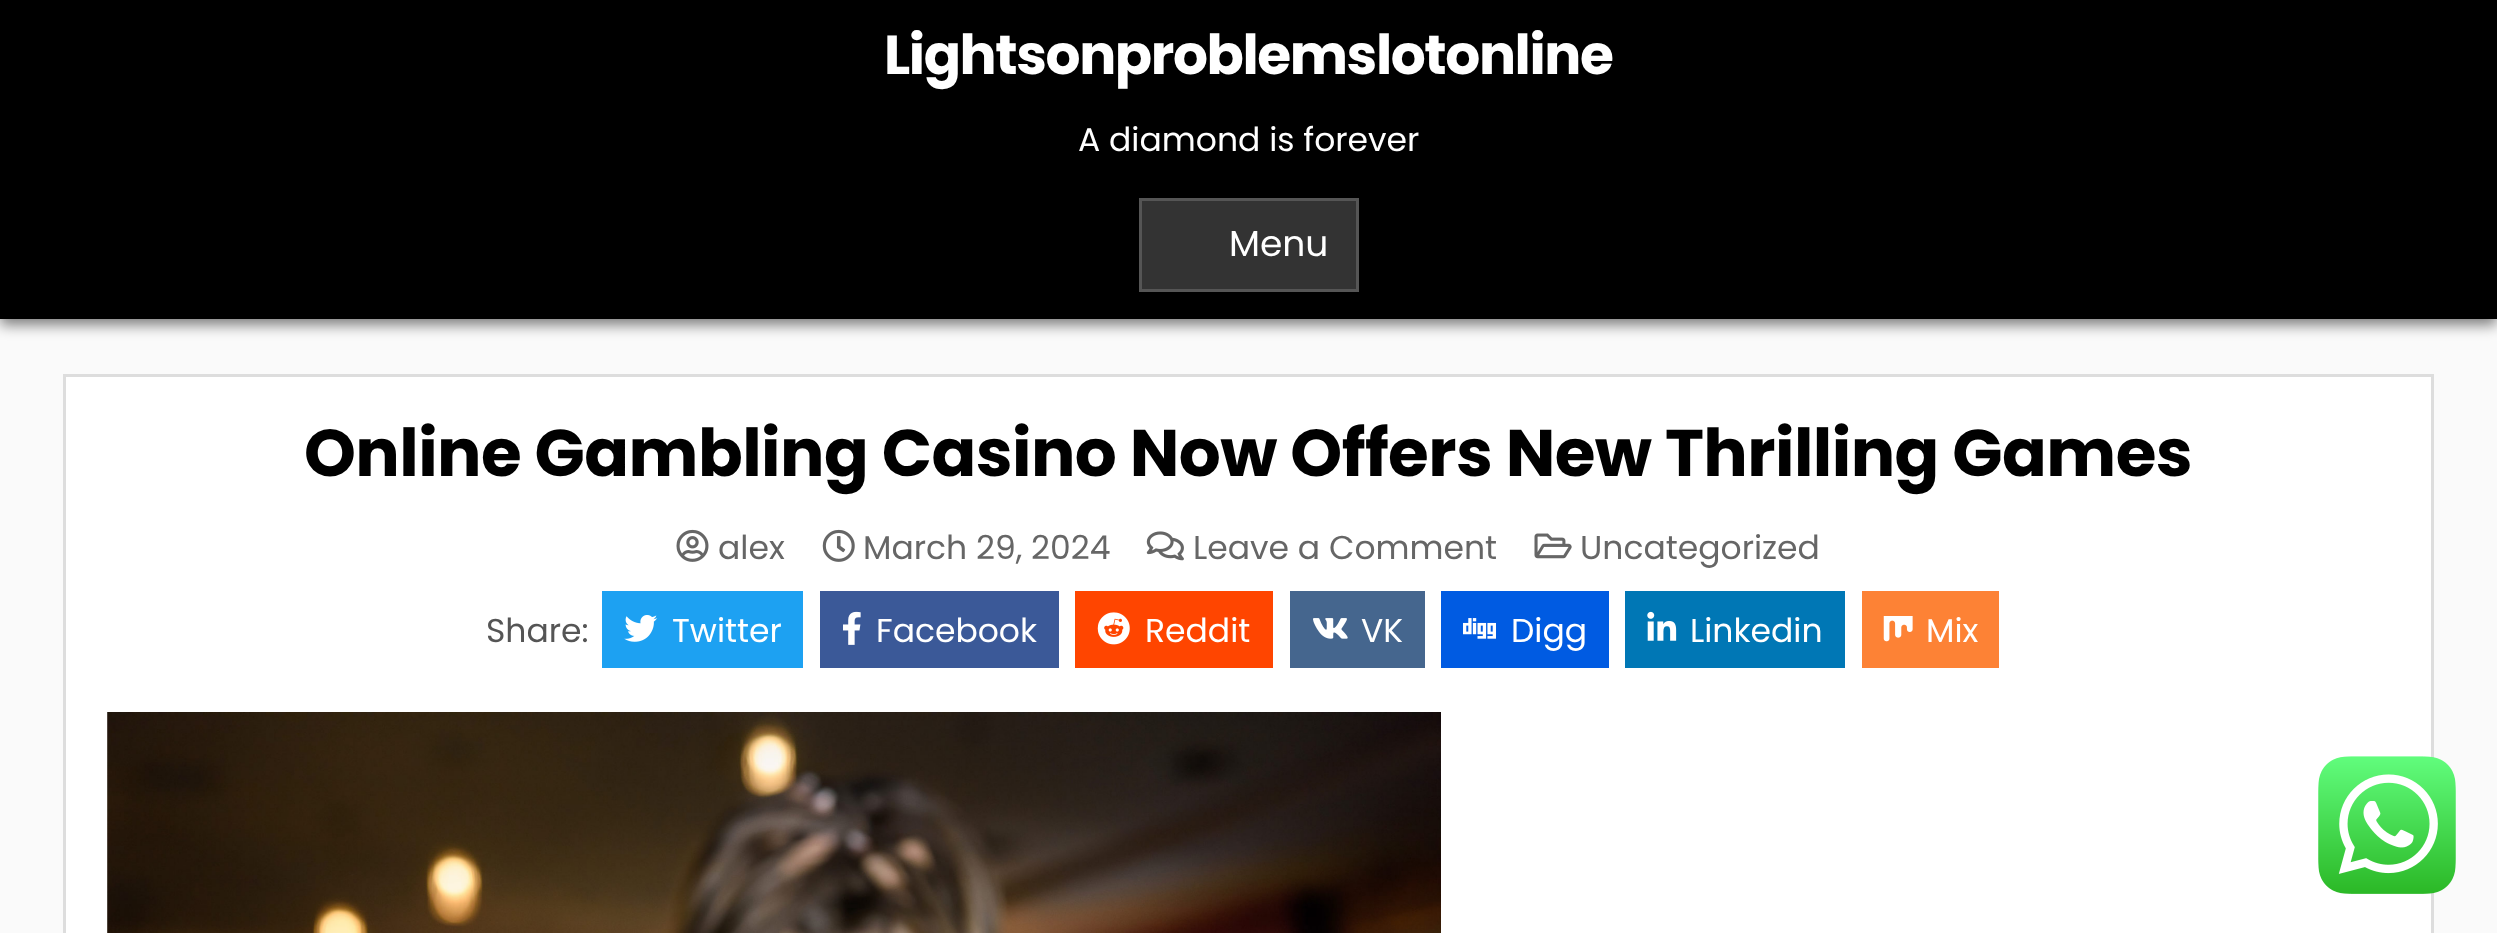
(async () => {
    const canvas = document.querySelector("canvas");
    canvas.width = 2497;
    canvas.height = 933;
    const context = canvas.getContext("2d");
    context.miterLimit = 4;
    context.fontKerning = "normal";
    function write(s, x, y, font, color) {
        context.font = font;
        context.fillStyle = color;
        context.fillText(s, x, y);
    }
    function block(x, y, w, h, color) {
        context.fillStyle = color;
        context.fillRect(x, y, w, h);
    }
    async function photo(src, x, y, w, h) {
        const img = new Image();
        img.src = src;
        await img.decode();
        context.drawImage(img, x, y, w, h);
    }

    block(0, 0, 2497, 933, "rgb(250, 250, 250)");
    context.fillStyle = "rgba(0, 0, 0, 0.5)";
    context.filter = "blur(7px)";
    context.beginPath();
    context.rect(0, 6, 2497, 319);
    context.fill();
    context.filter = "none";
    block(0, 0, 2497, 319, "rgb(0, 0, 0)");
    context.letterSpacing = "-1.4px";
    write("Lightsonproblemslotonline", 884, 74, "bold 55px Poppins", "rgb(255, 255, 255)");
    context.letterSpacing = "0px";
    write("A diamond is forever", 1078, 151, "33px Poppins", "rgb(255, 255, 255)");
    context.fillStyle = "rgb(51, 51, 51)";
    context.beginPath();
    context.rect(1140.5, 199.5, 217, 91);
    context.fill();
    context.strokeStyle = "rgb(85, 85, 85)";
    context.lineWidth = 3;
    context.stroke();
    write("Menu", 1229, 256, "36px Poppins", "rgb(255, 255, 255)");
    context.beginPath();
    context.rect(64.5, 375.5, 2368, 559);
    context.fill();
    context.strokeStyle = "rgb(221, 221, 221)";
    context.stroke();
    context.letterSpacing = "-0.55px";
    write("Online Gambling Casino Now Offers New Thrilling Games", 304, 476, "bold 66px Poppins", "rgb(0, 0, 0)");
    await photo("media/1.png", 676, 529, 33, 33);
    context.letterSpacing = "0px";
    write("alex", 718, 559, "33px Poppins", "rgb(102, 102, 102)");
    await photo("media/2.png", 822, 529, 33, 33);
    write("March 29, 2024", 863, 559, "33px Poppins", "rgb(102, 102, 102)");
    await photo("media/3.png", 1146, 531, 38, 30);
    write("Leave a Comment", 1193, 559, "33px Poppins", "rgb(102, 102, 102)");
    await photo("media/4.png", 1534, 533, 38, 26);
    write("Uncategorized", 1580, 559, "33px Poppins", "rgb(102, 102, 102)");
    write("Share:", 486, 642, "33px Poppins", "rgb(85, 85, 85)");
    block(602, 591, 201, 77, "rgb(29, 161, 242)");
    await photo("media/5.png", 624, 615, 34, 27);
    write("Twitter", 672, 642, "33px Poppins", "rgb(255, 255, 255)");
    block(820, 591, 239, 77, "rgb(59, 89, 152)");
    await photo("media/6.png", 843, 611, 18, 34);
    write("Facebook", 876, 642, "33px Poppins", "rgb(255, 255, 255)");
    block(1075, 591, 198, 77, "rgb(255, 69, 0)");
    await photo("media/7.png", 1097, 612, 33, 33);
    write("Reddit", 1145, 642, "33px Poppins", "rgb(255, 255, 255)");
    block(1290, 591, 135, 77, "rgb(69, 102, 142)");
    await photo("media/8.png", 1313, 618, 35, 21);
    write("VK", 1361, 642, "33px Poppins", "rgb(255, 255, 255)");
    block(1441, 591, 168, 77, "rgb(0, 91, 226)");
    await photo("media/9.png", 1463, 618, 33, 21);
    write("Digg", 1511, 642, "33px Poppins", "rgb(255, 255, 255)");
    block(1625, 591, 220, 77, "rgb(0, 119, 181)");
    await photo("media/10.png", 1647, 611, 30, 30);
    write("Linkedin", 1690, 642, "33px Poppins", "rgb(255, 255, 255)");
    block(1862, 591, 137, 77, "rgb(253, 130, 53)");
    await photo("media/11.png", 1883, 616, 30, 26);
    write("Mix", 1926, 642, "33px Poppins", "rgb(255, 255, 255)");
    await photo("media/12.png", 107, 712, 1334, 221);
    await photo("media/13.png", 2318, 756, 138, 138);
})();
